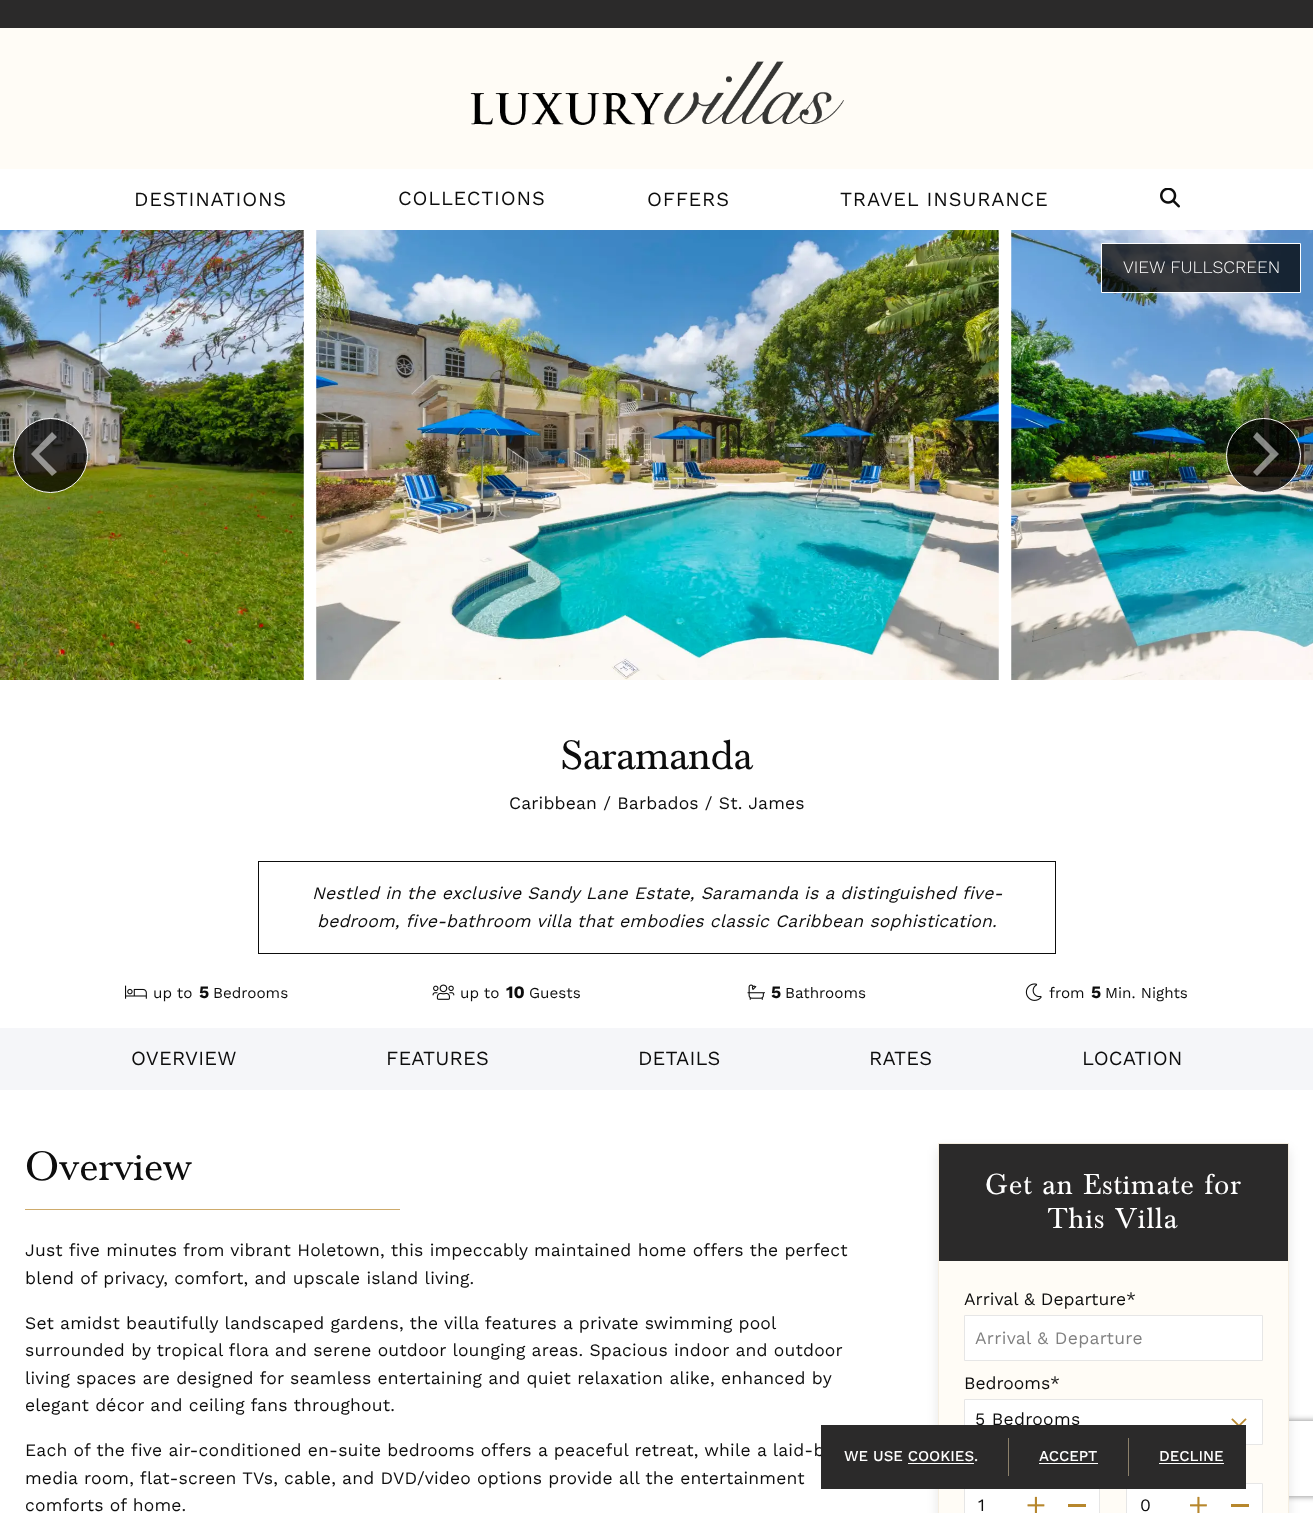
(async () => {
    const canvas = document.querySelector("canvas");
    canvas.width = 1313;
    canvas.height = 1513;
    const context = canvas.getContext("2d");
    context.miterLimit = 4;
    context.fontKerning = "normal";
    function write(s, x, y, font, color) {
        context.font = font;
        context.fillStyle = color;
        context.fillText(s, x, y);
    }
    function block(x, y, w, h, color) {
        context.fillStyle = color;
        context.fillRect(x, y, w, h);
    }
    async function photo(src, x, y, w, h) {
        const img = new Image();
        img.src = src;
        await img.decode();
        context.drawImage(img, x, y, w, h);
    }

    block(0, 0, 1313, 1513, "rgb(255, 255, 255)");
    block(0, 0, 1313, 28, "rgb(43, 42, 42)");
    block(0, 28, 1313, 141, "rgb(255, 252, 246)");
    await photo("media/1.png", 470, 61, 374, 64);
    context.letterSpacing = "0.75px";
    write("DESTINATIONS", 134, 206, "20px Work Sans", "rgb(13, 13, 13)");
    write("COLLECTIONS", 398, 205, "20px Work Sans", "rgb(13, 13, 13)");
    write("OFFERS", 647, 206, "20px Work Sans", "rgb(13, 13, 13)");
    write("TRAVEL INSURANCE", 840, 206, "20px Work Sans", "rgb(13, 13, 13)");
    await photo("media/2.png", 1160, 188, 20, 20);
    context.letterSpacing = "0.18px";
    write("Each of the five air-conditioned en-suite bedrooms offers a peaceful retreat, while a laid-b", 25, 1456, "17.5px Work Sans", "rgb(13, 13, 13)");
    context.fillStyle = "rgba(0, 0, 0, 0.1)";
    context.filter = "blur(6px)";
    context.beginPath();
    context.rect(938, 1150, 351, 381);
    context.fill();
    context.filter = "none";
    context.save();
    context.beginPath();
    context.moveTo(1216, 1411);
    context.lineTo(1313, 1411);
    context.lineTo(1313, 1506);
    context.lineTo(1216, 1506);
    context.closePath();
    context.moveTo(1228.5, 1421);
    context.lineTo(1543.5, 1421);
    context.bezierCurveTo(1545, 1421, 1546, 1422, 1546, 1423.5);
    context.lineTo(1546, 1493.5);
    context.bezierCurveTo(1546, 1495, 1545, 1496, 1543.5, 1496);
    context.lineTo(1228.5, 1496);
    context.bezierCurveTo(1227, 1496, 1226, 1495, 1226, 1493.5);
    context.lineTo(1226, 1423.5);
    context.bezierCurveTo(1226, 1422, 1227, 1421, 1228.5, 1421);
    context.closePath();
    context.clip("evenodd");
    context.fillStyle = "rgb(128, 128, 128)";
    context.filter = "blur(3px)";
    context.beginPath();
    context.roundRect(1226, 1421, 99, 75, 2.5);
    context.fill();
    context.filter = "none";
    context.restore();
    block(939, 1261, 349, 252, "rgb(255, 252, 246)");
    context.strokeStyle = "rgb(245, 238, 225)";
    context.strokeRect(938.5, 1143.5, 350, 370);
    context.fillStyle = "rgb(255, 255, 255)";
    context.beginPath();
    context.rect(964.5, 1399.5, 298, 45);
    context.fill();
    context.strokeStyle = "rgb(230, 230, 230)";
    context.stroke();
    context.letterSpacing = "0.3px";
    write("5 Bedrooms", 975, 1425, "17.5px Work Sans", "rgb(13, 13, 13)");
    block(965, 1489, 134, 24, "rgb(255, 255, 255)");
    context.strokeRect(964.5, 1483.5, 135, 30);
    context.beginPath();
    context.rect(1126.5, 1483.5, 136, 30);
    context.fill();
    context.stroke();
    block(821, 1425, 425, 64, "rgb(43, 42, 42)");
    context.letterSpacing = "0px";
    write("WE USE COOKIES.", 844, 1461, "500 15px Work Sans", "rgb(255, 255, 255)");
    block(908, 1463, 66, 1, "rgb(255, 255, 255)");
    block(1008, 1438, 1, 38, "rgb(140, 129, 107)");
    write("ACCEPT", 1039, 1461, "500 15px Work Sans", "rgb(255, 255, 255)");
    block(1039, 1463, 59, 1, "rgb(255, 255, 255)");
    block(1128, 1438, 1, 38, "rgb(140, 129, 107)");
    write("DECLINE", 1159, 1461, "500 15px Work Sans", "rgb(255, 255, 255)");
    block(1159, 1463, 65, 1, "rgb(255, 255, 255)");
    await photo("media/3.png", 0, 230, 304, 450);
    await photo("media/4.png", 316, 230, 683, 450);
    await photo("media/5.png", 1011, 230, 302, 450);
    context.fillStyle = "rgba(0, 0, 0, 0.75)";
    context.beginPath();
    context.rect(1101.5, 243.5, 199, 49);
    context.fill();
    context.strokeStyle = "rgb(255, 255, 255)";
    context.stroke();
    write("VIEW FULLSCREEN", 1123, 273, "300 17.5px Work Sans", "rgb(255, 255, 255)");
    context.fillStyle = "rgba(0, 0, 0, 0.75)";
    context.beginPath();
    context.arc(50.5, 455.5, 37, 0, Math.PI * 2);
    context.fill();
    context.stroke();
    context.fillStyle = "rgba(255, 255, 255, 0.5)";
    context.beginPath();
    context.moveTo(31, 454);
    context.lineTo(52, 476);
    context.lineTo(57, 472);
    context.lineTo(39, 454);
    context.lineTo(57, 437);
    context.lineTo(52, 432);
    context.closePath();
    context.fill();
    context.fillStyle = "rgba(0, 0, 0, 0.75)";
    context.beginPath();
    context.arc(1263.5, 455.5, 37, 0, Math.PI * 2);
    context.fill();
    context.stroke();
    context.fillStyle = "rgba(255, 255, 255, 0.5)";
    context.beginPath();
    context.moveTo(1279, 454);
    context.lineTo(1257, 432);
    context.lineTo(1253, 437);
    context.lineTo(1270, 454);
    context.lineTo(1253, 472);
    context.lineTo(1257, 476);
    context.closePath();
    context.fill();
    write("Saramanda", 561, 769, "42.5px Baskerville", "rgb(13, 13, 13)");
    context.letterSpacing = "0.18px";
    write("Caribbean / Barbados / St. James", 509, 809, "17.5px Work Sans", "rgb(13, 13, 13)");
    context.strokeStyle = "rgb(13, 13, 13)";
    context.strokeRect(258.5, 861.5, 797, 92);
    write("Nestled in the exclusive Sandy Lane Estate, Saramanda is a distinguished five-", 312, 899, "italic 17.5px Work Sans", "rgb(13, 13, 13)");
    write("bedroom, five-bathroom villa that embodies classic Caribbean sophistication.", 317, 927, "italic 17.5px Work Sans", "rgb(13, 13, 13)");
    await photo("media/6.png", 125, 985, 22, 14);
    context.letterSpacing = "0px";
    write("up to", 153, 998, "15.25px Work Sans", "rgb(13, 13, 13)");
    write("5", 199, 998, "bold 17.5px Work Sans", "rgb(13, 13, 13)");
    write("Bedrooms", 213, 998, "15.25px Work Sans", "rgb(13, 13, 13)");
    await photo("media/7.png", 432, 984, 23, 16);
    write("up to", 460, 998, "15.25px Work Sans", "rgb(13, 13, 13)");
    write("10", 506, 998, "bold 17.5px Work Sans", "rgb(13, 13, 13)");
    write("Guests", 529, 998, "15.25px Work Sans", "rgb(13, 13, 13)");
    await photo("media/8.png", 747, 984, 18, 16);
    write("5", 771, 998, "bold 17.5px Work Sans", "rgb(13, 13, 13)");
    write("Bathrooms", 785, 998, "15.25px Work Sans", "rgb(13, 13, 13)");
    await photo("media/9.png", 1025, 983, 17, 18);
    write("from", 1049, 998, "15.25px Work Sans", "rgb(13, 13, 13)");
    write("5", 1091, 998, "bold 17.5px Work Sans", "rgb(13, 13, 13)");
    write("Min. Nights", 1105, 998, "15.25px Work Sans", "rgb(13, 13, 13)");
    block(0, 1028, 1313, 62, "rgb(245, 246, 249)");
    context.letterSpacing = "0.18px";
    write("OVERVIEW", 131, 1065, "20px Work Sans", "rgb(13, 13, 13)");
    write("FEATURES", 386, 1065, "20px Work Sans", "rgb(13, 13, 13)");
    write("DETAILS", 638, 1065, "20px Work Sans", "rgb(13, 13, 13)");
    write("RATES", 869, 1065, "20px Work Sans", "rgb(13, 13, 13)");
    write("LOCATION", 1082, 1065, "20px Work Sans", "rgb(13, 13, 13)");
    write("Overview", 25, 1180, "42.5px Baskerville", "rgb(13, 13, 13)");
    block(25, 1209, 375, 1, "rgb(206, 171, 108)");
    write("Just five minutes from vibrant Holetown, this impeccably maintained home offers the perfect", 25, 1256, "17.5px Work Sans", "rgb(13, 13, 13)");
    write("blend of privacy, comfort, and upscale island living.", 25, 1284, "17.5px Work Sans", "rgb(13, 13, 13)");
    write("Set amidst beautifully landscaped gardens, the villa features a private swimming pool", 25, 1329, "17.5px Work Sans", "rgb(13, 13, 13)");
    write("surrounded by tropical flora and serene outdoor lounging areas. Spacious indoor and outdoor", 25, 1356, "17.5px Work Sans", "rgb(13, 13, 13)");
    write("living spaces are designed for seamless entertaining and quiet relaxation alike, enhanced by", 25, 1384, "17.5px Work Sans", "rgb(13, 13, 13)");
    write("elegant décor and ceiling fans throughout.", 25, 1411, "17.5px Work Sans", "rgb(13, 13, 13)");
    write("media room, flat-screen TVs, cable, and DVD/video options provide all the entertainment", 25, 1484, "17.5px Work Sans", "rgb(13, 13, 13)");
    write("comforts of home.", 25, 1511, "17.5px Work Sans", "rgb(13, 13, 13)");
    block(939, 1144, 349, 117, "rgb(43, 42, 42)");
    context.letterSpacing = "1.25px";
    write("Get an Estimate for", 985, 1194, "30px Baskerville", "rgb(255, 255, 255)");
    write("This Villa", 1048, 1228, "30px Baskerville", "rgb(255, 255, 255)");
    context.letterSpacing = "0px";
    write("Arrival & Departure*", 964, 1305, "17.5px Work Sans", "rgb(13, 13, 13)");
    context.fillStyle = "rgb(255, 255, 255)";
    context.beginPath();
    context.rect(964.5, 1315.5, 298, 45);
    context.fill();
    context.strokeStyle = "rgb(230, 230, 230)";
    context.stroke();
    context.letterSpacing = "0.3px";
    write("Arrival & Departure", 975, 1344, "17.5px Work Sans", "rgb(129, 129, 129)");
    context.letterSpacing = "0px";
    write("Bedrooms*", 964, 1389, "17.5px Work Sans", "rgb(13, 13, 13)");
    await photo("media/10.png", 1231, 1418, 16, 7);
    context.letterSpacing = "0.3px";
    write("1", 978, 1511, "17.5px Work Sans", "rgb(13, 13, 13)");
    await photo("media/11.png", 1027, 1496, 18, 17);
    block(1068, 1504, 18, 3, "rgb(183, 135, 45)");
    write("0", 1140, 1511, "17.5px Work Sans", "rgb(13, 13, 13)");
    await photo("media/12.png", 1190, 1496, 17, 17);
    block(1231, 1504, 18, 3, "rgb(183, 135, 45)");
})();
